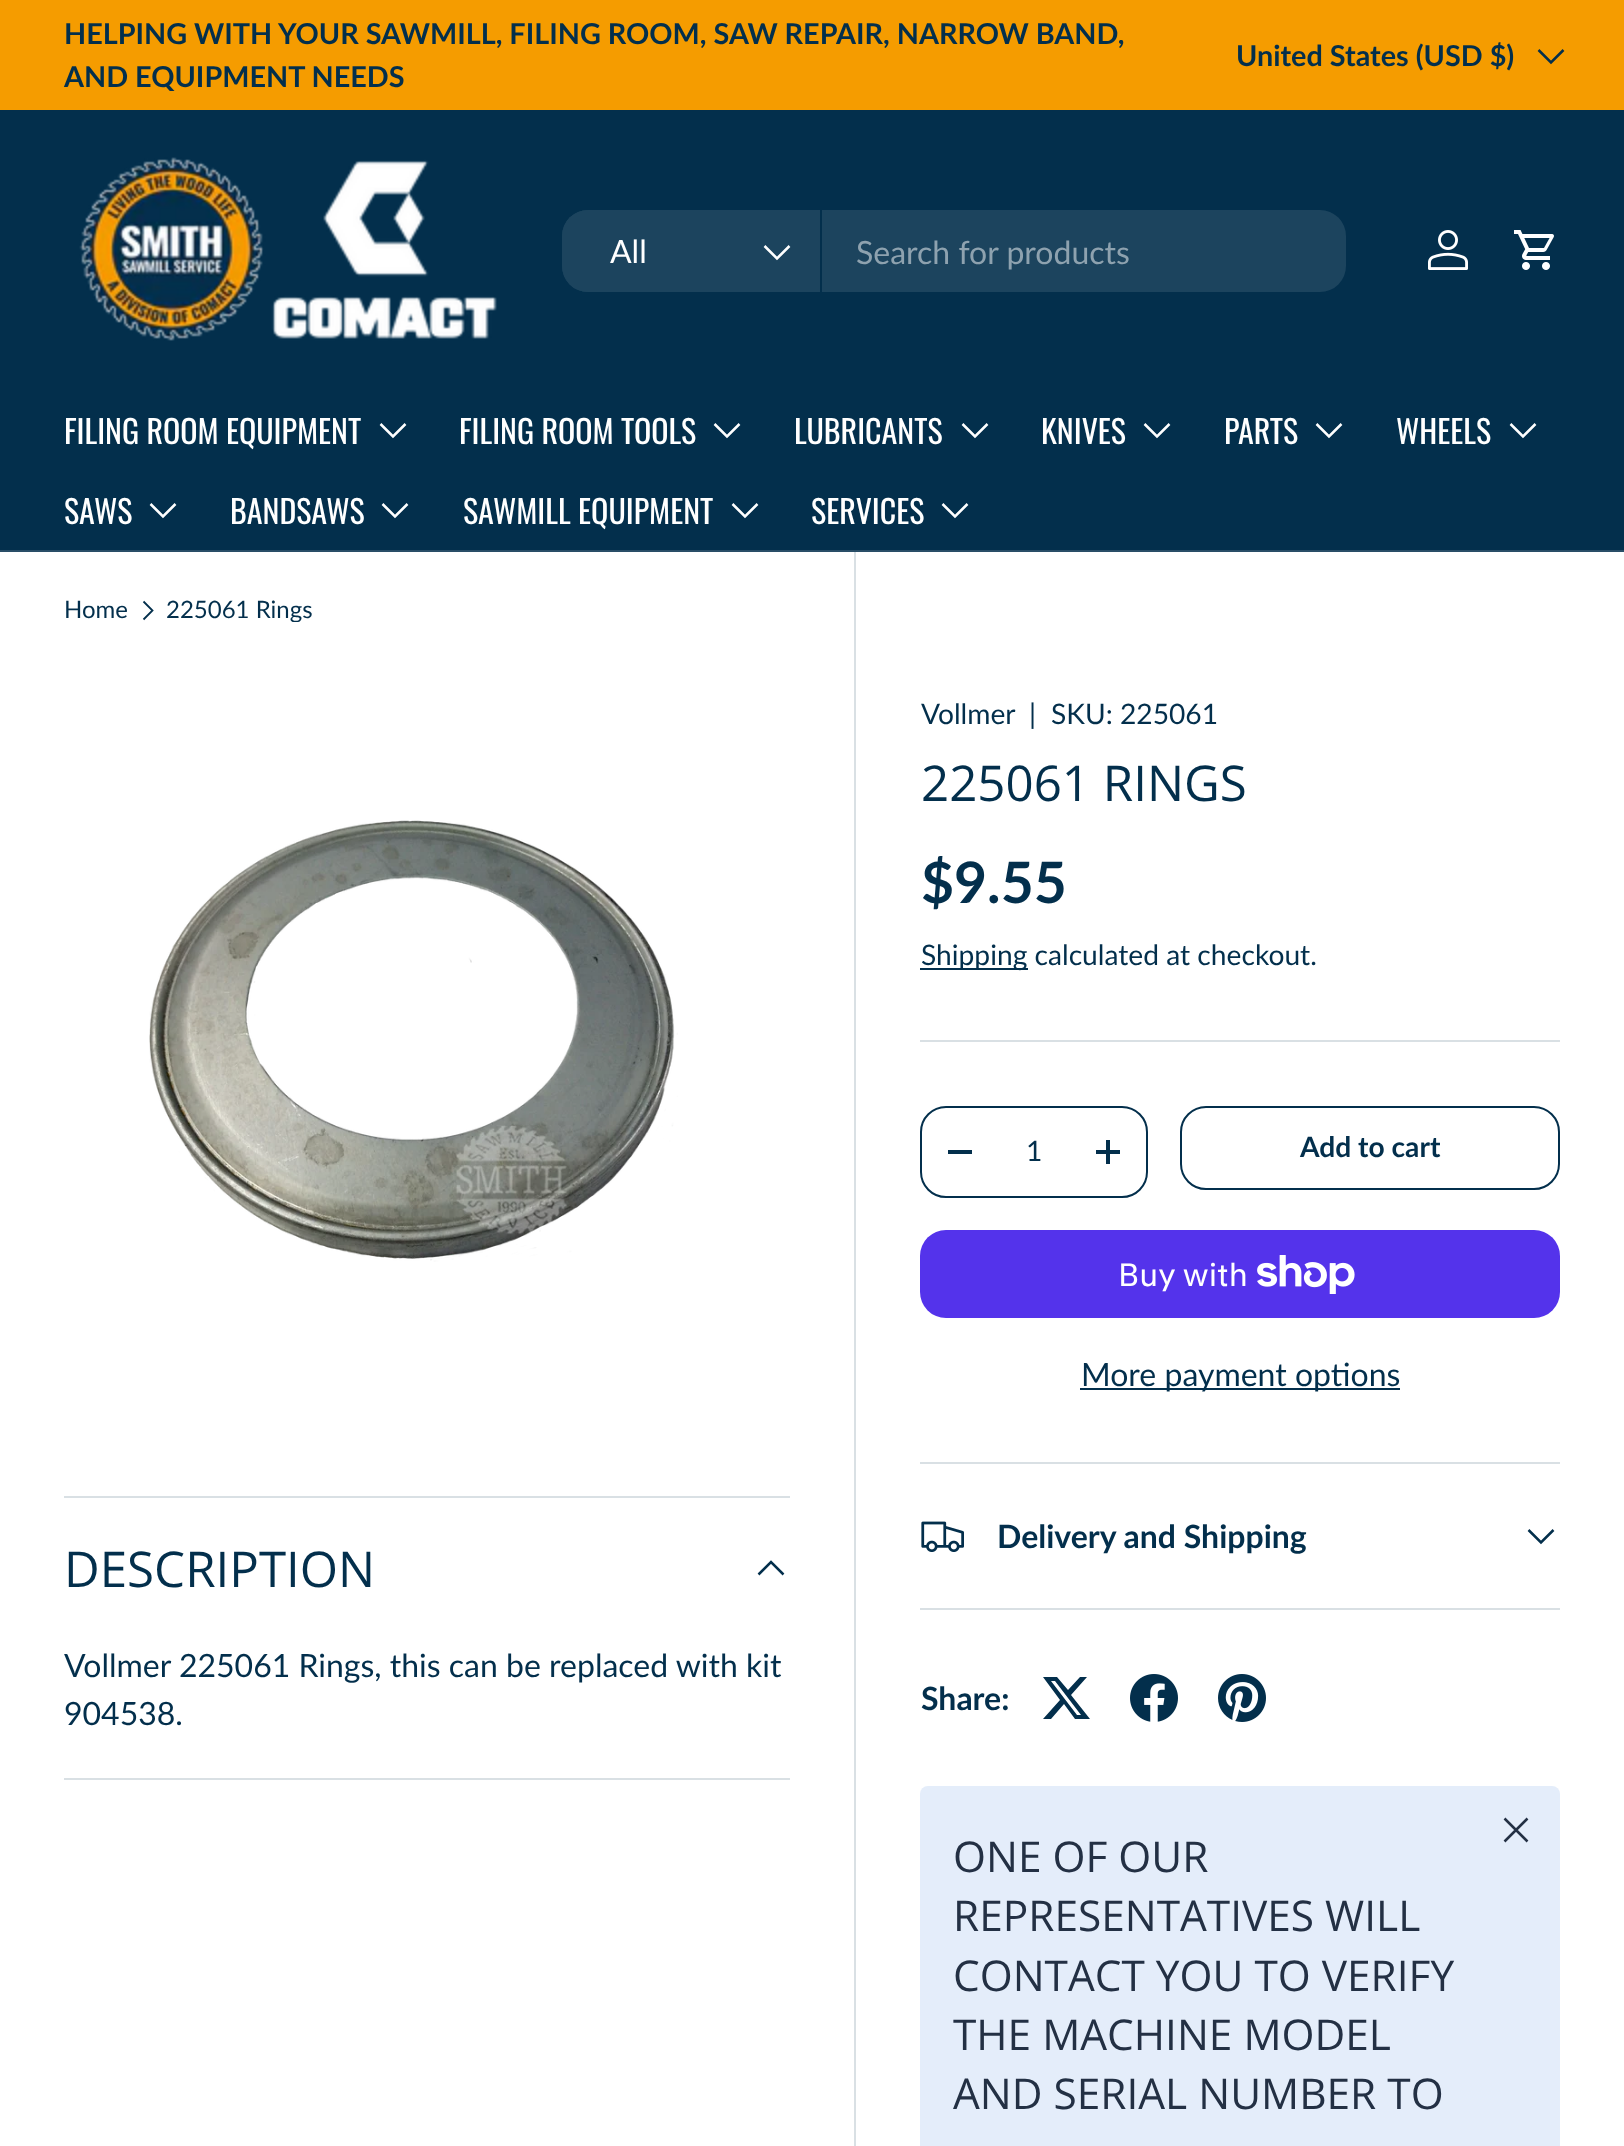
(async () => {
    const canvas = document.querySelector("canvas");
    canvas.width = 1624;
    canvas.height = 2146;
    const context = canvas.getContext("2d");
    context.miterLimit = 4;
    context.fontKerning = "normal";
    function write(s, x, y, font, color) {
        context.font = font;
        context.fillStyle = color;
        context.fillText(s, x, y);
    }
    function block(x, y, w, h, color) {
        context.fillStyle = color;
        context.fillRect(x, y, w, h);
    }
    function card(x, y, w, h, r, color) {
        context.fillStyle = color;
        context.beginPath();
        context.roundRect(x, y, w, h, r);
        context.fill();
    }
    async function photo(src, x, y, w, h) {
        const img = new Image();
        img.src = src;
        await img.decode();
        context.drawImage(img, x, y, w, h);
    }

    block(0, 0, 1624, 2146, "rgb(255, 255, 255)");
    block(0, 0, 1624, 110, "rgb(245, 156, 0)");
    write("HELPING WITH YOUR SAWMILL, FILING ROOM, SAW REPAIR, NARROW BAND,", 64, 44, "bold 28.8px Lato", "rgb(3, 47, 76)");
    write("AND EQUIPMENT NEEDS", 64, 87, "bold 28.8px Lato", "rgb(3, 47, 76)");
    write("United States (USD $)", 1236, 66, "bold 28.8px Lato", "rgb(3, 47, 76)");
    context.beginPath();
    context.moveTo(1563.5, 50);
    context.lineTo(1551, 62.5);
    context.lineTo(1538.5, 50);
    context.strokeStyle = "rgb(3, 47, 76)";
    context.lineWidth = 2.5;
    context.stroke();
    block(0, 110, 1624, 440, "rgb(3, 47, 76)");
    block(0, 550, 1624, 2, "rgb(41, 78, 103)");
    await photo("media/1.png", 79, 157, 418, 184);
    card(562, 210, 784, 82, 26, "rgb(28, 68, 94)");
    context.beginPath();
    context.roundRect(562, 210, 260, 82, [26, 0, 0, 26]);
    context.fill();
    block(820, 210, 2, 82, "rgb(3, 47, 76)");
    write("All", 610, 263, "32px Lato", "rgb(255, 255, 255)");
    context.beginPath();
    context.moveTo(789.5, 246);
    context.lineTo(777, 258.5);
    context.lineTo(764.5, 246);
    context.strokeStyle = "rgb(255, 255, 255)";
    context.stroke();
    write("Search for products", 856, 264, "32px Lato", "rgb(142, 162, 175)");
    await photo("media/2.png", 1428, 230, 40, 40);
    await photo("media/3.png", 1514, 230, 40, 40);
    write("FILING ROOM EQUIPMENT", 64, 444, "32px Oswald", "rgb(255, 255, 255)");
    context.beginPath();
    context.moveTo(405.5, 424);
    context.lineTo(393, 436.5);
    context.lineTo(380.5, 424);
    context.stroke();
    write("FILING ROOM TOOLS", 459, 444, "32px Oswald", "rgb(255, 255, 255)");
    context.beginPath();
    context.moveTo(739.5, 424);
    context.lineTo(727, 436.5);
    context.lineTo(714.5, 424);
    context.stroke();
    write("LUBRICANTS", 794, 444, "32px Oswald", "rgb(255, 255, 255)");
    context.beginPath();
    context.moveTo(987.5, 424);
    context.lineTo(975, 436.5);
    context.lineTo(962.5, 424);
    context.stroke();
    write("KNIVES", 1041, 444, "32px Oswald", "rgb(255, 255, 255)");
    context.beginPath();
    context.moveTo(1169.5, 424);
    context.lineTo(1157, 436.5);
    context.lineTo(1144.5, 424);
    context.stroke();
    write("PARTS", 1224, 444, "32px Oswald", "rgb(255, 255, 255)");
    context.beginPath();
    context.moveTo(1341.5, 424);
    context.lineTo(1329, 436.5);
    context.lineTo(1316.5, 424);
    context.stroke();
    write("WHEELS", 1396, 444, "32px Oswald", "rgb(255, 255, 255)");
    context.beginPath();
    context.moveTo(1535.5, 424);
    context.lineTo(1523, 436.5);
    context.lineTo(1510.5, 424);
    context.stroke();
    write("SAWS", 64, 524, "32px Oswald", "rgb(255, 255, 255)");
    context.beginPath();
    context.moveTo(175.5, 504);
    context.lineTo(163, 516.5);
    context.lineTo(150.5, 504);
    context.stroke();
    write("BANDSAWS", 230, 524, "32px Oswald", "rgb(255, 255, 255)");
    context.beginPath();
    context.moveTo(407.5, 504);
    context.lineTo(395, 516.5);
    context.lineTo(382.5, 504);
    context.stroke();
    write("SAWMILL EQUIPMENT", 463, 524, "32px Oswald", "rgb(255, 255, 255)");
    context.beginPath();
    context.moveTo(757.5, 504);
    context.lineTo(745, 516.5);
    context.lineTo(732.5, 504);
    context.stroke();
    write("SERVICES", 811, 524, "32px Oswald", "rgb(255, 255, 255)");
    context.beginPath();
    context.moveTo(967.5, 504);
    context.lineTo(955, 516.5);
    context.lineTo(942.5, 504);
    context.stroke();
    write("Home", 64, 618, "24px Lato", "rgb(3, 47, 76)");
    context.beginPath();
    context.moveTo(143.5, 601.5);
    context.lineTo(152.5, 610.5);
    context.lineTo(143.5, 619.5);
    context.strokeStyle = "rgb(3, 47, 76)";
    context.lineWidth = 1.8;
    context.stroke();
    context.save();
    context.beginPath();
    context.rect(166, 598, 146, 24);
    context.clip();
    write("225061 Rings", 166, 618, "24px Lato", "rgb(3, 47, 76)");
    context.restore();
    block(64, 1496, 726, 2, "rgb(217, 224, 228)");
    block(64, 1778, 726, 2, "rgb(217, 224, 228)");
    write("DESCRIPTION", 64, 1587, "49.25px Open Sans", "rgb(3, 47, 76)");
    context.beginPath();
    context.moveTo(783.5, 1574.5);
    context.lineTo(771, 1562);
    context.lineTo(758.5, 1574.5);
    context.lineWidth = 2.5;
    context.stroke();
    write("Vollmer 225061 Rings, this can be replaced with kit", 64, 1677, "32px Lato", "rgb(3, 47, 76)");
    write("904538.", 64, 1725, "32px Lato", "rgb(3, 47, 76)");
    await photo("media/4.png", 149, 820, 529, 442);
    block(854, 552, 2, 1594, "rgb(217, 224, 228)");
    write("Vollmer", 921, 724, "28.2px Lato", "rgb(3, 47, 76)");
    write("|", 1029, 724, "28.2px Lato", "rgb(3, 47, 76)");
    write("SKU: 225061", 1051, 724, "28.2px Lato", "rgb(3, 47, 76)");
    write("225061 RINGS", 921, 801, "49.25px Open Sans", "rgb(3, 47, 76)");
    write("$9.55", 921, 903, "bold 57px Lato", "rgb(3, 47, 76)");
    block(920, 968, 108, 2, "rgb(3, 47, 76)");
    write("Shipping calculated at checkout.", 921, 965, "28.2px Lato", "rgb(3, 47, 76)");
    block(920, 1040, 640, 2, "rgb(217, 224, 228)");
    context.beginPath();
    context.roundRect(921, 1107, 226, 90, 25);
    context.lineWidth = 2;
    context.stroke();
    block(948, 1150, 24, 4, "rgb(3, 47, 76)");
    write("1", 1026, 1161, "28.2px Lato", "rgb(3, 47, 76)");
    block(1096, 1150, 24, 4, "rgb(3, 47, 76)");
    block(1106, 1140, 4, 24, "rgb(3, 47, 76)");
    context.beginPath();
    context.roundRect(1181, 1107, 378, 82, 25);
    context.stroke();
    write("Add to cart", 1300, 1157, "bold 28.2px Lato", "rgb(3, 47, 76)");
    card(920, 1230, 640, 88, 26, "rgb(84, 51, 235)");
    write("Buy with", 1118, 1286, "32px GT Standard", "rgb(255, 255, 255)");
    await photo("media/5.png", 1257, 1255, 98, 39);
    block(1080, 1388, 320, 2, "rgb(3, 47, 76)");
    write("More payment options", 1081, 1386, "32px Lato", "rgb(3, 47, 76)");
    block(920, 1462, 640, 2, "rgb(217, 224, 228)");
    block(920, 1608, 640, 2, "rgb(217, 224, 228)");
    await photo("media/6.png", 921, 1521, 43, 31);
    write("Delivery and Shipping", 997, 1548, "bold 32px Lato", "rgb(3, 47, 76)");
    context.beginPath();
    context.moveTo(1553.5, 1530);
    context.lineTo(1541, 1542.5);
    context.lineTo(1528.5, 1530);
    context.lineWidth = 2.5;
    context.stroke();
    write("Share:", 921, 1710, "bold 32px Lato", "rgb(3, 47, 76)");
    context.beginPath();
    context.moveTo(1080, 1677);
    context.lineTo(1087, 1677);
    context.lineTo(1071, 1695);
    context.lineTo(1090, 1719);
    context.lineTo(1075, 1719);
    context.lineTo(1064, 1704);
    context.lineTo(1051, 1719);
    context.lineTo(1043, 1719);
    context.lineTo(1060, 1700);
    context.lineTo(1043, 1677);
    context.lineTo(1057, 1677);
    context.lineTo(1068, 1690);
    context.closePath();
    context.moveTo(1077, 1715);
    context.lineTo(1081, 1715);
    context.lineTo(1055, 1681);
    context.lineTo(1051, 1681);
    context.closePath();
    context.fill();
    await photo("media/7.png", 1130, 1674, 48, 48);
    await photo("media/8.png", 1218, 1674, 48, 48);
    card(920, 1786, 640, 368, 8, "rgb(228, 237, 250)");
    context.beginPath();
    context.moveTo(1504.5, 1841.5);
    context.lineTo(1527.5, 1818.5);
    context.moveTo(1504.5, 1818.5);
    context.lineTo(1527.5, 1841.5);
    context.strokeStyle = "rgb(35, 48, 68)";
    context.lineJoin = "round";
    context.stroke();
    write("ONE OF OUR", 953, 1872, "42.4px Open Sans", "rgb(35, 48, 68)");
    write("REPRESENTATIVES WILL", 953, 1931, "42.4px Open Sans", "rgb(35, 48, 68)");
    write("CONTACT YOU TO VERIFY", 953, 1991, "42.4px Open Sans", "rgb(35, 48, 68)");
    write("THE MACHINE MODEL", 953, 2050, "42.4px Open Sans", "rgb(35, 48, 68)");
    write("AND SERIAL NUMBER TO", 953, 2109, "42.4px Open Sans", "rgb(35, 48, 68)");
})();
